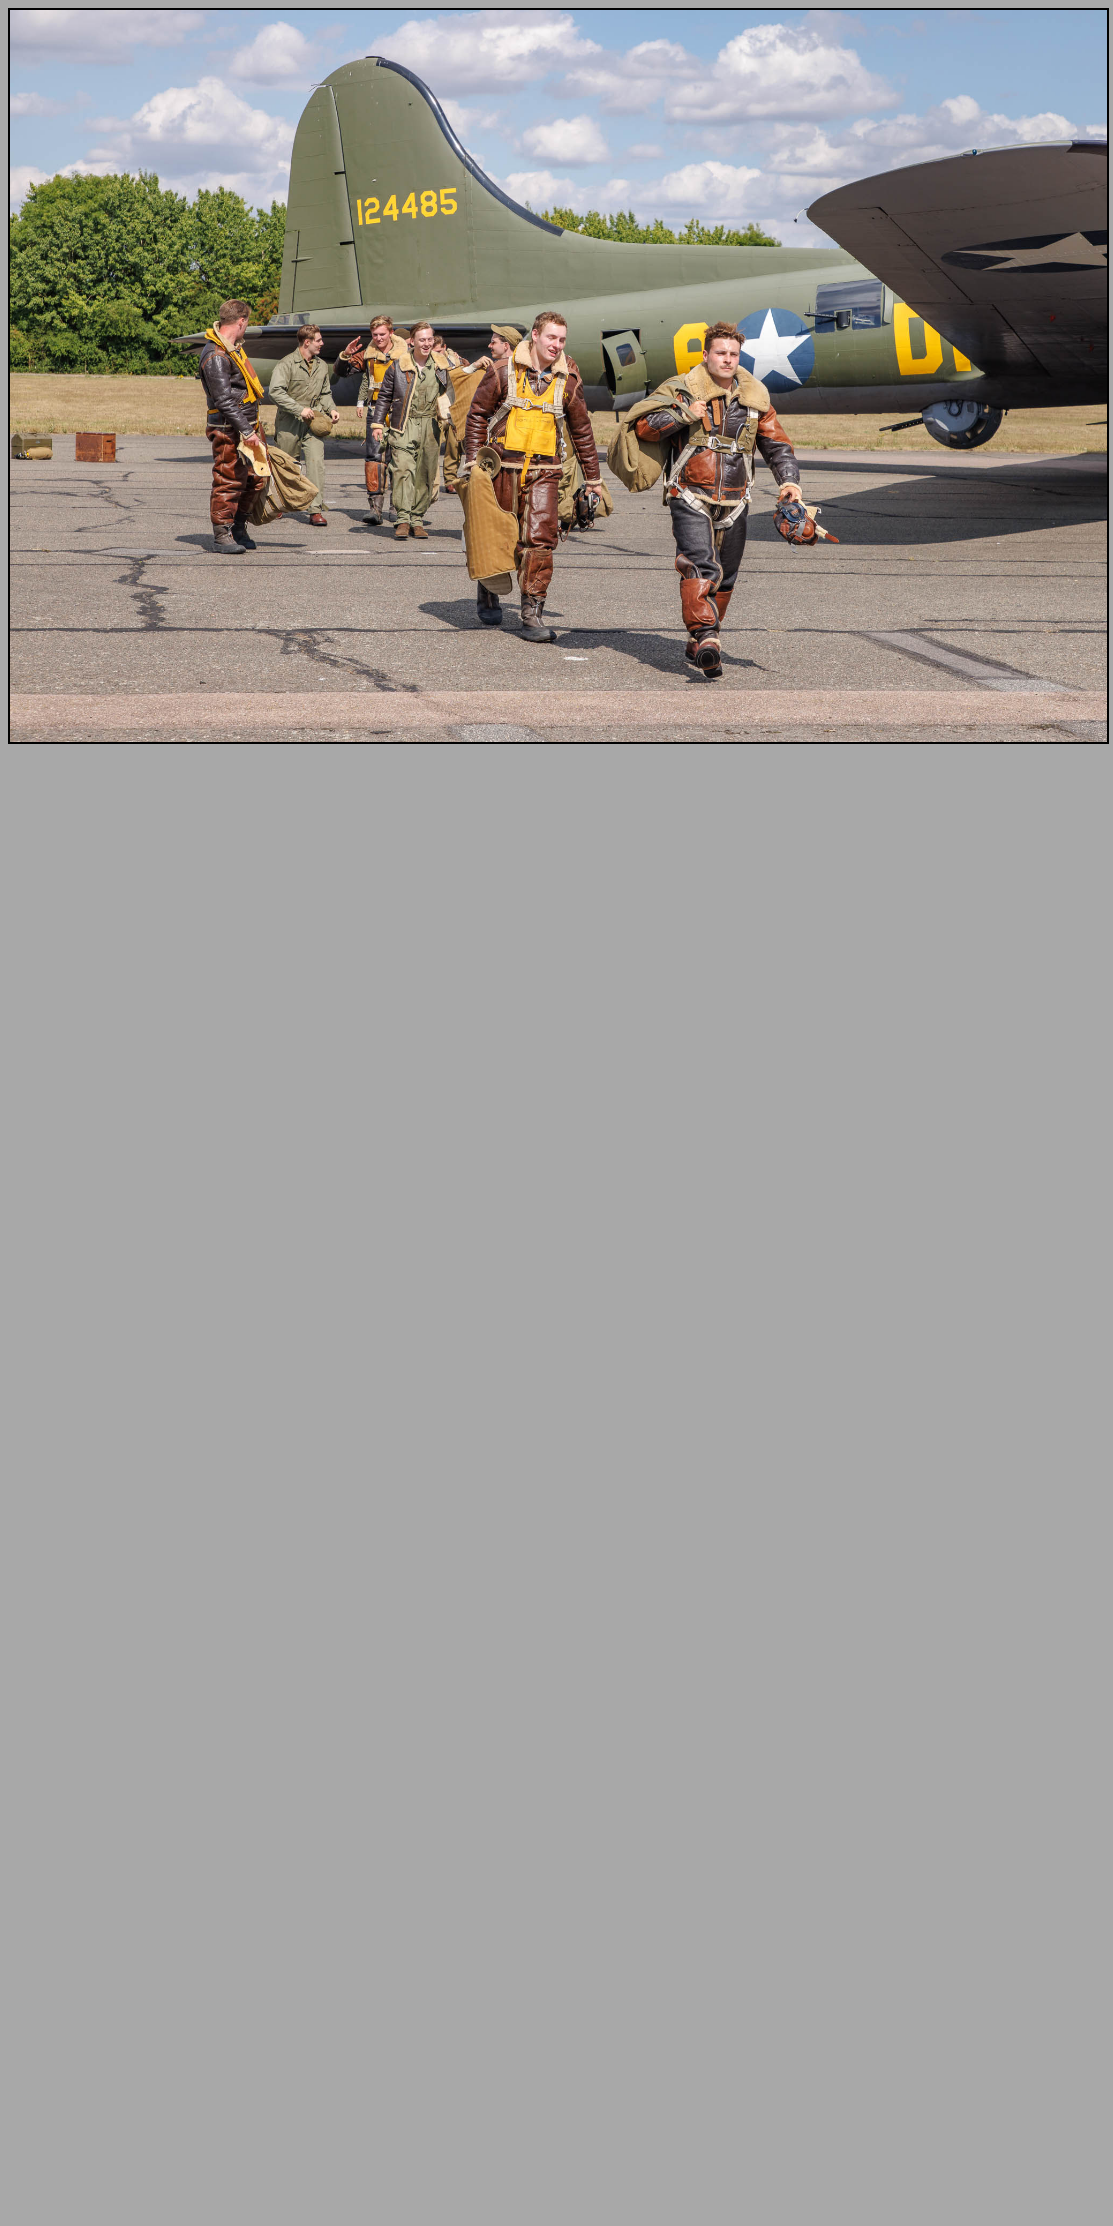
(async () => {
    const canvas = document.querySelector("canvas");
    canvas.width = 1113;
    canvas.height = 2226;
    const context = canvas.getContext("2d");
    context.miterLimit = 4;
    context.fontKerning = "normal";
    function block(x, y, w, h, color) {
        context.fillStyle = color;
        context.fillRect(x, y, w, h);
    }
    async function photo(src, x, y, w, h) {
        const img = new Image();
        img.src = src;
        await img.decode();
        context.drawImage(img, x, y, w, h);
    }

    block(0, 0, 1113, 2226, "rgb(168, 168, 168)");
    context.strokeStyle = "rgb(0, 0, 0)";
    context.lineWidth = 2;
    context.strokeRect(9, 9, 1099, 734);
    await photo("media/1.png", 10, 10, 1097, 732);
})();
